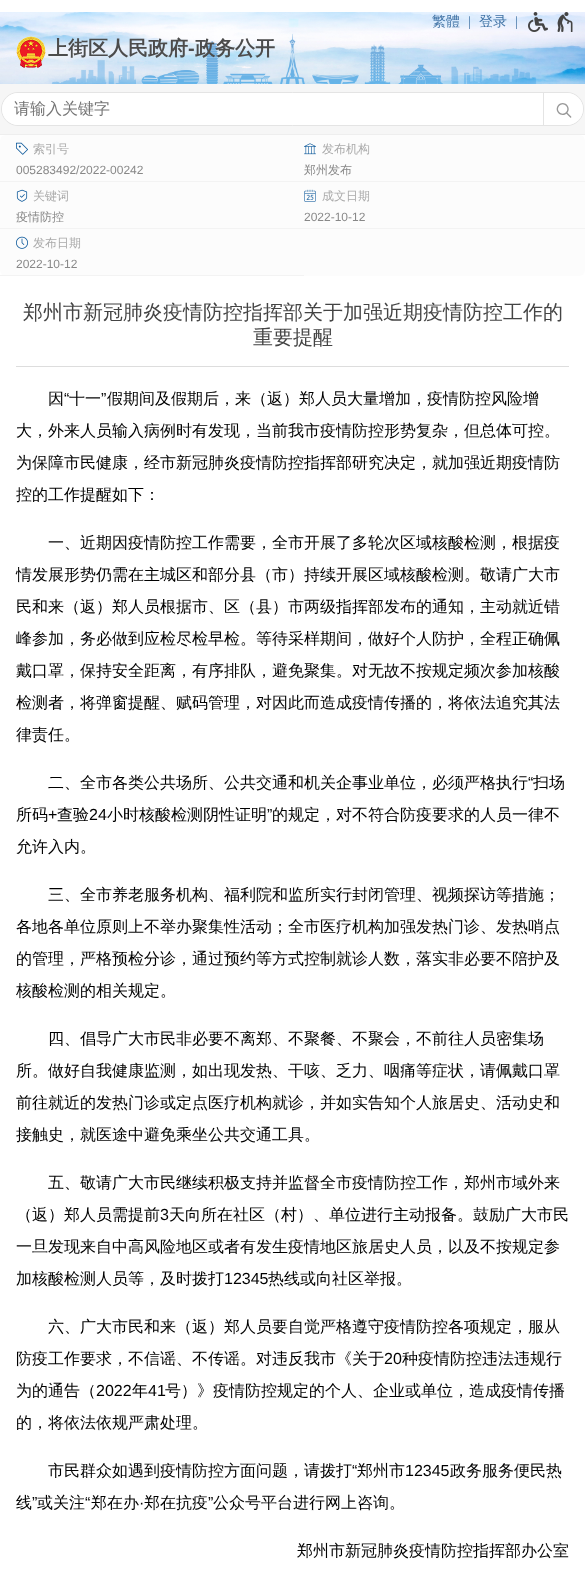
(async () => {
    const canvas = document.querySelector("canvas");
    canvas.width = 585;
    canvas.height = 1574;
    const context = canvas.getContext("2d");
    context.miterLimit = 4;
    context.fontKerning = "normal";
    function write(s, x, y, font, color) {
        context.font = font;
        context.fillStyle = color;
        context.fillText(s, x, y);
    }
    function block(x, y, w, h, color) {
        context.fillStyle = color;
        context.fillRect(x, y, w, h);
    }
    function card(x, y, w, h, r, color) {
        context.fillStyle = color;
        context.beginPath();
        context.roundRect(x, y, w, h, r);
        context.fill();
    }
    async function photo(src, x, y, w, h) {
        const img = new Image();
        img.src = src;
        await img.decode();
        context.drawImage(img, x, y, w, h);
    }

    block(0, 0, 585, 1574, "rgb(255, 255, 255)");
    await photo("media/3.png", 0, 12, 585, 72);
    write("繁體", 432, 26, "500 14px WenQuanYi Zen Hei", "rgb(62, 113, 164)");
    write("|", 468, 26, "14px Liberation Serif", "rgb(62, 113, 164)");
    write("登录", 479, 26, "500 14px WenQuanYi Zen Hei", "rgb(62, 113, 164)");
    write("|", 515, 26, "14px Liberation Serif", "rgb(62, 113, 164)");
    await photo("media/1.png", 528, 12, 20, 20);
    await photo("media/2.png", 557, 12, 16, 20);
    await photo("media/4.png", 16, 36, 30, 32);
    write("上街区人民政府", 48, 55, "bold 20px WenQuanYi Zen Hei", "rgb(76, 76, 76)");
    write("-", 188, 55, "bold 20px Liberation Sans", "rgb(76, 76, 76)");
    write("政务公开", 195, 55, "bold 20px WenQuanYi Zen Hei", "rgb(76, 76, 76)");
    block(0, 84, 585, 50, "rgb(246, 246, 246)");
    block(0, 134, 585, 1, "rgb(238, 238, 238)");
    context.beginPath();
    context.roundRect(1.5, 92.5, 582, 33, 16.5);
    context.strokeStyle = "rgb(228, 228, 228)";
    context.stroke();
    context.fillStyle = "rgb(255, 255, 255)";
    context.beginPath();
    context.roundRect(2, 93, 541, 32, [16, 0, 0, 16]);
    context.fill();
    write("请输入关键字", 14, 114, "500 16px WenQuanYi Zen Hei", "rgb(117, 117, 117)");
    block(543, 93, 1, 32, "rgb(228, 228, 228)");
    context.fillStyle = "rgb(255, 255, 255)";
    context.beginPath();
    context.roundRect(544, 93, 39, 32, [0, 16, 16, 0]);
    context.fill();
    write("N", 556, 117, "16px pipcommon", "rgb(153, 153, 153)");
    card(0, 135, 585, 141, 6, "rgb(252, 252, 252)");
    block(0, 181, 585, 1, "rgb(243, 243, 243)");
    await photo("media/5.png", 16, 142, 12, 13);
    write("索引号", 33, 153, "500 12px WenQuanYi Zen Hei", "rgb(170, 170, 170)");
    write("005283492/2022-00242", 16, 174, "12px Liberation Sans", "rgb(136, 136, 136)");
    await photo("media/6.png", 304, 143, 12, 12);
    write("发布机构", 322, 153, "500 12px WenQuanYi Zen Hei", "rgb(170, 170, 170)");
    write("郑州发布", 304, 174, "500 12px WenQuanYi Zen Hei", "rgb(136, 136, 136)");
    block(0, 228, 585, 1, "rgb(243, 243, 243)");
    await photo("media/7.png", 16, 189, 12, 13);
    write("关键词", 33, 200, "500 12px WenQuanYi Zen Hei", "rgb(170, 170, 170)");
    write("疫情防控", 16, 221, "500 12px WenQuanYi Zen Hei", "rgb(136, 136, 136)");
    await photo("media/8.png", 304, 189, 12, 13);
    write("成文日期", 322, 200, "500 12px WenQuanYi Zen Hei", "rgb(170, 170, 170)");
    write("2022-10-12", 304, 221, "12px Liberation Sans", "rgb(136, 136, 136)");
    block(0, 275, 304, 1, "rgb(243, 243, 243)");
    await photo("media/9.png", 16, 236, 12, 13);
    write("发布日期", 33, 247, "500 12px WenQuanYi Zen Hei", "rgb(170, 170, 170)");
    write("2022-10-12", 16, 268, "12px Liberation Sans", "rgb(136, 136, 136)");
    write("郑州市新冠肺炎疫情防控指挥部关于加强近期疫情防控工作的", 23, 319, "500 20px WenQuanYi Zen Hei", "rgb(68, 68, 68)");
    write("重要提醒", 253, 344, "500 20px WenQuanYi Zen Hei", "rgb(68, 68, 68)");
    block(16, 366, 553, 1, "rgb(221, 221, 221)");
    write("因", 48, 404, "500 16px WenQuanYi Zen Hei", "rgb(0, 0, 0)");
    write("“", 64, 404, "16px Liberation Sans", "rgb(0, 0, 0)");
    write("十一", 69, 404, "500 16px WenQuanYi Zen Hei", "rgb(0, 0, 0)");
    write("”", 101, 404, "16px Liberation Sans", "rgb(0, 0, 0)");
    write("假期间及假期后，来（返）郑人员大量增加，疫情防控风险增", 107, 404, "500 16px WenQuanYi Zen Hei", "rgb(0, 0, 0)");
    write("大，外来人员输入病例时有发现，当前我市疫情防控形势复杂，但总体可控。", 16, 436, "500 16px WenQuanYi Zen Hei", "rgb(0, 0, 0)");
    write("为保障市民健康，经市新冠肺炎疫情防控指挥部研究决定，就加强近期疫情防", 16, 468, "500 16px WenQuanYi Zen Hei", "rgb(0, 0, 0)");
    write("控的工作提醒如下：", 16, 500, "500 16px WenQuanYi Zen Hei", "rgb(0, 0, 0)");
    write("一、近期因疫情防控工作需要，全市开展了多轮次区域核酸检测，根据疫", 48, 548, "500 16px WenQuanYi Zen Hei", "rgb(0, 0, 0)");
    write("情发展形势仍需在主城区和部分县（市）持续开展区域核酸检测。敬请广大市", 16, 580, "500 16px WenQuanYi Zen Hei", "rgb(0, 0, 0)");
    write("民和来（返）郑人员根据市、区（县）市两级指挥部发布的通知，主动就近错", 16, 612, "500 16px WenQuanYi Zen Hei", "rgb(0, 0, 0)");
    write("峰参加，务必做到应检尽检早检。等待采样期间，做好个人防护，全程正确佩", 16, 644, "500 16px WenQuanYi Zen Hei", "rgb(0, 0, 0)");
    write("戴口罩，保持安全距离，有序排队，避免聚集。对无故不按规定频次参加核酸", 16, 676, "500 16px WenQuanYi Zen Hei", "rgb(0, 0, 0)");
    write("检测者，将弹窗提醒、赋码管理，对因此而造成疫情传播的，将依法追究其法", 16, 708, "500 16px WenQuanYi Zen Hei", "rgb(0, 0, 0)");
    write("律责任。", 16, 740, "500 16px WenQuanYi Zen Hei", "rgb(0, 0, 0)");
    write("二、全市各类公共场所、公共交通和机关企事业单位，必须严格执行", 48, 788, "500 16px WenQuanYi Zen Hei", "rgb(0, 0, 0)");
    write("“", 528, 788, "16px Liberation Sans", "rgb(0, 0, 0)");
    write("扫场", 533, 788, "500 16px WenQuanYi Zen Hei", "rgb(0, 0, 0)");
    write("所码", 16, 820, "500 16px WenQuanYi Zen Hei", "rgb(0, 0, 0)");
    write("+", 48, 820, "16px Liberation Sans", "rgb(0, 0, 0)");
    write("查验", 57, 820, "500 16px WenQuanYi Zen Hei", "rgb(0, 0, 0)");
    write("24", 89, 820, "16px Liberation Sans", "rgb(0, 0, 0)");
    write("小时核酸检测阴性证明", 107, 820, "500 16px WenQuanYi Zen Hei", "rgb(0, 0, 0)");
    write("”", 267, 820, "16px Liberation Sans", "rgb(0, 0, 0)");
    write("的规定，对不符合防疫要求的人员一律不", 272, 820, "500 16px WenQuanYi Zen Hei", "rgb(0, 0, 0)");
    write("允许入内。", 16, 852, "500 16px WenQuanYi Zen Hei", "rgb(0, 0, 0)");
    write("三、全市养老服务机构、福利院和监所实行封闭管理、视频探访等措施；", 48, 900, "500 16px WenQuanYi Zen Hei", "rgb(0, 0, 0)");
    write("各地各单位原则上不举办聚集性活动；全市医疗机构加强发热门诊、发热哨点", 16, 932, "500 16px WenQuanYi Zen Hei", "rgb(0, 0, 0)");
    write("的管理，严格预检分诊，通过预约等方式控制就诊人数，落实非必要不陪护及", 16, 964, "500 16px WenQuanYi Zen Hei", "rgb(0, 0, 0)");
    write("核酸检测的相关规定。", 16, 996, "500 16px WenQuanYi Zen Hei", "rgb(0, 0, 0)");
    write("四、倡导广大市民非必要不离郑、不聚餐、不聚会，不前往人员密集场", 48, 1044, "500 16px WenQuanYi Zen Hei", "rgb(0, 0, 0)");
    write("所。做好自我健康监测，如出现发热、干咳、乏力、咽痛等症状，请佩戴口罩", 16, 1076, "500 16px WenQuanYi Zen Hei", "rgb(0, 0, 0)");
    write("前往就近的发热门诊或定点医疗机构就诊，并如实告知个人旅居史、活动史和", 16, 1108, "500 16px WenQuanYi Zen Hei", "rgb(0, 0, 0)");
    write("接触史，就医途中避免乘坐公共交通工具。", 16, 1140, "500 16px WenQuanYi Zen Hei", "rgb(0, 0, 0)");
    write("五、敬请广大市民继续积极支持并监督全市疫情防控工作，郑州市域外来", 48, 1188, "500 16px WenQuanYi Zen Hei", "rgb(0, 0, 0)");
    write("（返）郑人员需提前", 16, 1220, "500 16px WenQuanYi Zen Hei", "rgb(0, 0, 0)");
    write("3", 160, 1220, "16px Liberation Sans", "rgb(0, 0, 0)");
    write("天向所在社区（村）、单位进行主动报备。鼓励广大市民", 169, 1220, "500 16px WenQuanYi Zen Hei", "rgb(0, 0, 0)");
    write("一旦发现来自中高风险地区或者有发生疫情地区旅居史人员，以及不按规定参", 16, 1252, "500 16px WenQuanYi Zen Hei", "rgb(0, 0, 0)");
    write("加核酸检测人员等，及时拨打", 16, 1284, "500 16px WenQuanYi Zen Hei", "rgb(0, 0, 0)");
    write("12345", 224, 1284, "16px Liberation Sans", "rgb(0, 0, 0)");
    write("热线或向社区举报。", 268, 1284, "500 16px WenQuanYi Zen Hei", "rgb(0, 0, 0)");
    write("六、广大市民和来（返）郑人员要自觉严格遵守疫情防控各项规定，服从", 48, 1332, "500 16px WenQuanYi Zen Hei", "rgb(0, 0, 0)");
    write("防疫工作要求，不信谣、不传谣。对违反我市《关于", 16, 1364, "500 16px WenQuanYi Zen Hei", "rgb(0, 0, 0)");
    write("20", 384, 1364, "16px Liberation Sans", "rgb(0, 0, 0)");
    write("种疫情防控违法违规行", 402, 1364, "500 16px WenQuanYi Zen Hei", "rgb(0, 0, 0)");
    write("为的通告（", 16, 1396, "500 16px WenQuanYi Zen Hei", "rgb(0, 0, 0)");
    write("2022", 96, 1396, "16px Liberation Sans", "rgb(0, 0, 0)");
    write("年", 132, 1396, "500 16px WenQuanYi Zen Hei", "rgb(0, 0, 0)");
    write("41", 148, 1396, "16px Liberation Sans", "rgb(0, 0, 0)");
    write("号）》疫情防控规定的个人、企业或单位，造成疫情传播", 165, 1396, "500 16px WenQuanYi Zen Hei", "rgb(0, 0, 0)");
    write("的，将依法依规严肃处理。", 16, 1428, "500 16px WenQuanYi Zen Hei", "rgb(0, 0, 0)");
    write("市民群众如遇到疫情防控方面问题，请拨打", 48, 1476, "500 16px WenQuanYi Zen Hei", "rgb(0, 0, 0)");
    write("“", 352, 1476, "16px Liberation Sans", "rgb(0, 0, 0)");
    write("郑州市", 357, 1476, "500 16px WenQuanYi Zen Hei", "rgb(0, 0, 0)");
    write("12345", 405, 1476, "16px Liberation Sans", "rgb(0, 0, 0)");
    write("政务服务便民热", 450, 1476, "500 16px WenQuanYi Zen Hei", "rgb(0, 0, 0)");
    write("线", 16, 1508, "500 16px WenQuanYi Zen Hei", "rgb(0, 0, 0)");
    write("”", 32, 1508, "16px Liberation Sans", "rgb(0, 0, 0)");
    write("或关注", 37, 1508, "500 16px WenQuanYi Zen Hei", "rgb(0, 0, 0)");
    write("“", 85, 1508, "16px Liberation Sans", "rgb(0, 0, 0)");
    write("郑在办", 91, 1508, "500 16px WenQuanYi Zen Hei", "rgb(0, 0, 0)");
    write("郑在抗疫", 144, 1508, "500 16px WenQuanYi Zen Hei", "rgb(0, 0, 0)");
    write("”", 208, 1508, "16px Liberation Sans", "rgb(0, 0, 0)");
    write("公众号平台进行网上咨询。", 213, 1508, "500 16px WenQuanYi Zen Hei", "rgb(0, 0, 0)");
    write("·", 139, 1508, "16px Liberation Sans", "rgb(0, 0, 0)");
    write("郑州市新冠肺炎疫情防控指挥部办公室", 297, 1556, "500 16px WenQuanYi Zen Hei", "rgb(0, 0, 0)");
})();
